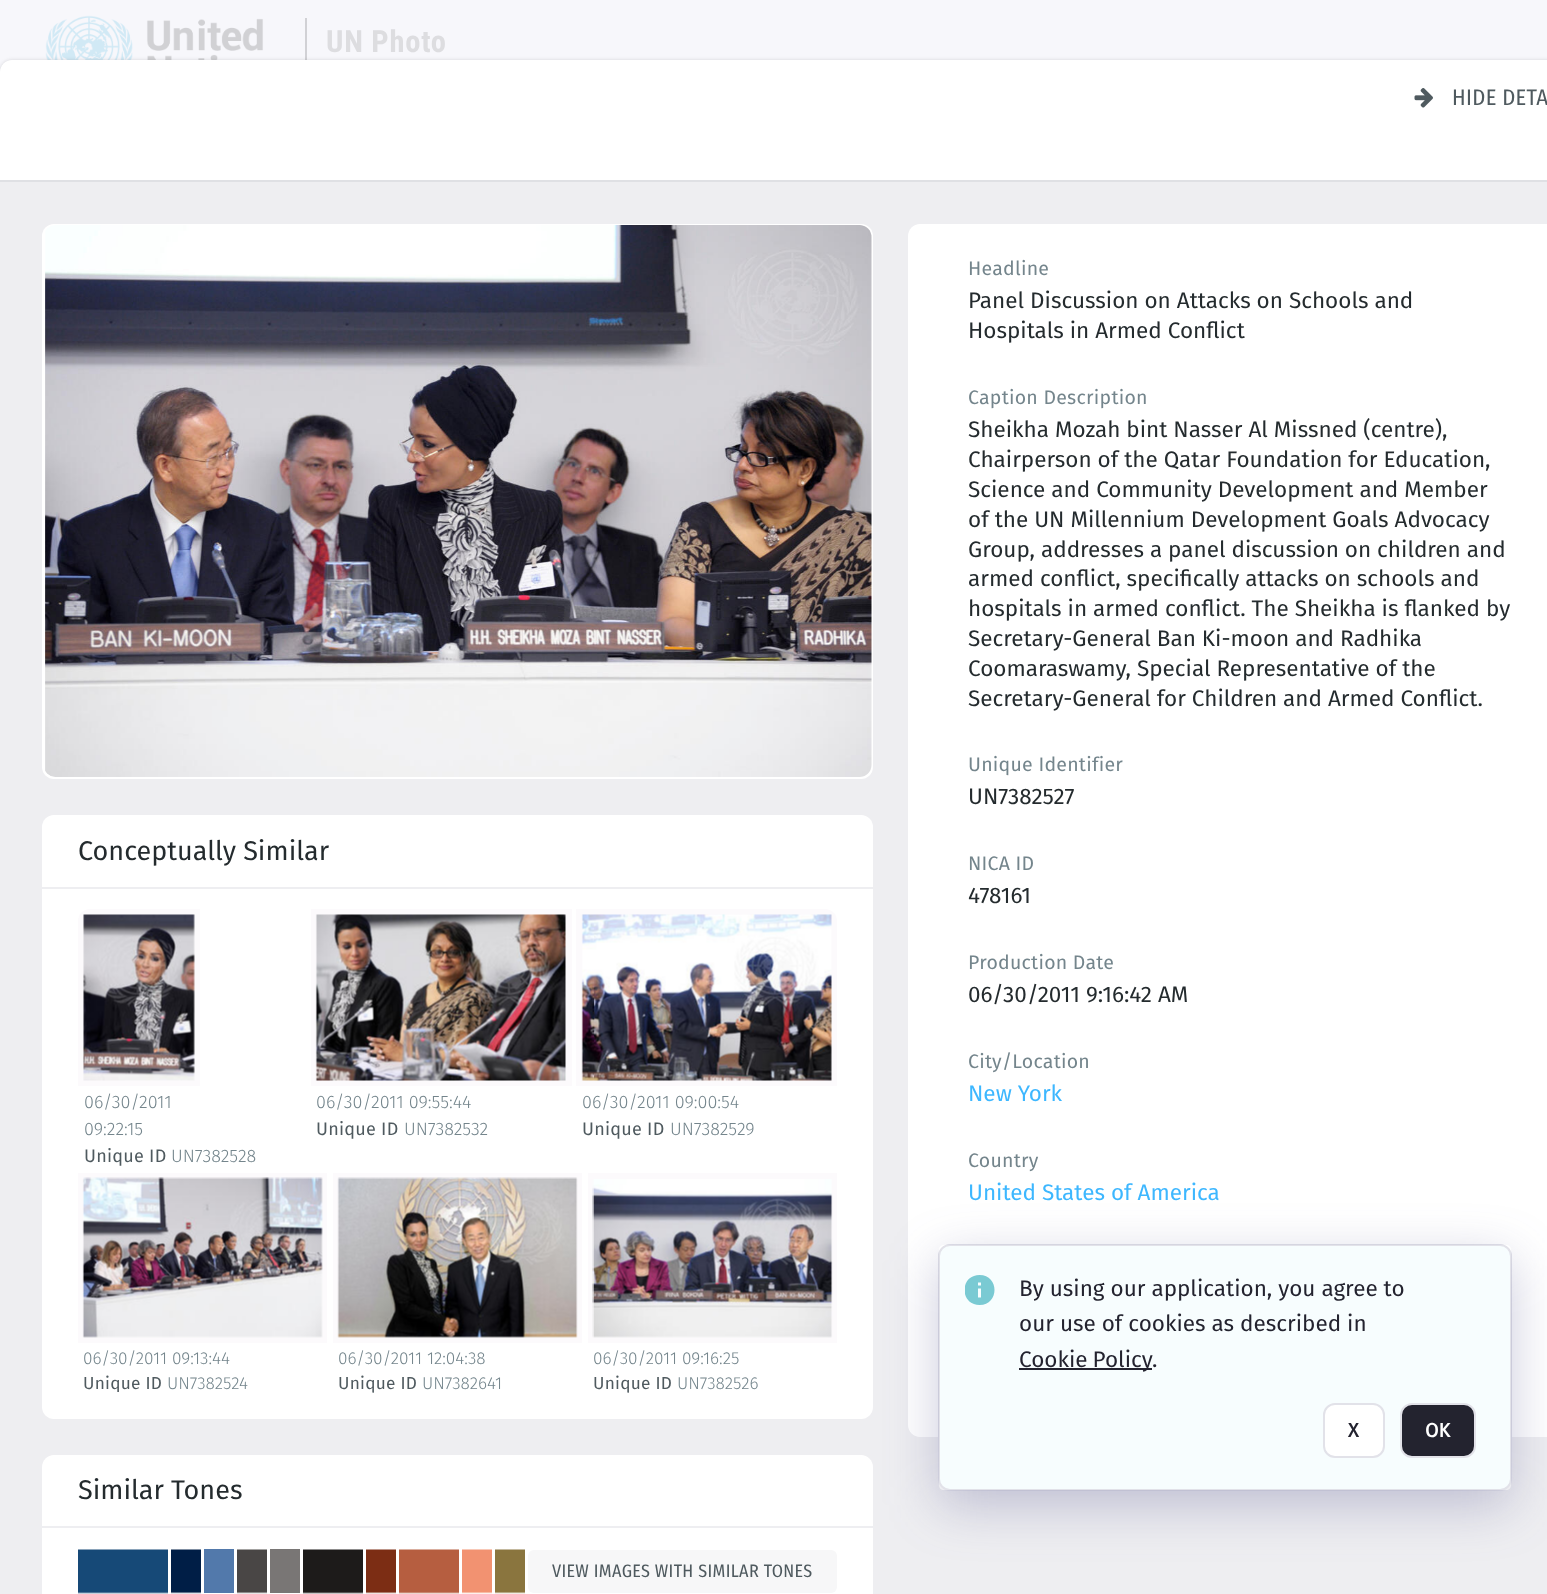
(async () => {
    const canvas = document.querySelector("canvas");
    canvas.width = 1547;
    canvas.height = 1594;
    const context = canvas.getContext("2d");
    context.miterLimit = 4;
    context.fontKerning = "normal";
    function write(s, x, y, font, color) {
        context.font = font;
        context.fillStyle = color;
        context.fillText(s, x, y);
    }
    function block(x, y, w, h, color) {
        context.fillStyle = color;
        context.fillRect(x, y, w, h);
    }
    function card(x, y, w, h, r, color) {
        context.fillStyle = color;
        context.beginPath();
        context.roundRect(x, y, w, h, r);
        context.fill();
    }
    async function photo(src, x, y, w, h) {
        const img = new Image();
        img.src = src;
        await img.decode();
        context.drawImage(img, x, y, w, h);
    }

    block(0, 0, 1547, 1594, "rgb(247, 247, 251)");
    await photo("media/1.png", 45, 15, 219, 45);
    block(305, 18, 2, 42, "rgb(209, 209, 213)");
    context.letterSpacing = "0.75px";
    write("UN Photo", 326, 52, "bold 30.5px Roboto Condensed", "rgb(221, 221, 224)");
    context.fillStyle = "rgba(0, 0, 0, 0.06)";
    context.filter = "blur(1.5px)";
    context.beginPath();
    context.roundRect(0, 60, 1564, 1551, 12);
    context.fill();
    context.filter = "none";
    context.fillStyle = "rgba(0, 0, 0, 0.08)";
    context.filter = "blur(2px)";
    context.beginPath();
    context.roundRect(0, 60, 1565, 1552, 12);
    context.fill();
    context.filter = "none";
    context.fillStyle = "rgb(255, 255, 255)";
    context.beginPath();
    context.moveTo(12, 60);
    context.lineTo(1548, 60);
    context.lineTo(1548, 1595);
    context.lineTo(0, 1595);
    context.lineTo(0, 72);
    context.bezierCurveTo(0, 65.5, 5.5, 60, 12, 60);
    context.closePath();
    context.fill();
    await photo("media/2.png", 1414, 88, 19, 20);
    context.letterSpacing = "0.35px";
    write("HIDE DETA", 1452, 105, "22.5px Fira Sans Condensed", "rgb(79, 90, 95)");
    block(0, 180, 1547, 2, "rgb(223, 224, 228)");
    block(0, 182, 1547, 1412, "rgb(238, 238, 241)");
    card(42, 224, 831, 555, 12, "rgb(255, 255, 255)");
    await photo("media/3.png", 45, 225, 827, 552);
    card(42, 815, 831, 604, 12, "rgb(255, 255, 255)");
    context.letterSpacing = "0px";
    write("Conceptually Similar", 78, 860, "27px Fira Sans", "rgb(36, 43, 46)");
    context.fillStyle = "rgb(252, 250, 252)";
    context.beginPath();
    context.roundRect(78, 909, 122, 177, [12, 0, 0, 0]);
    context.fill();
    await photo("media/4.png", 83, 914, 112, 167);
    write("06/30/2011", 84, 1108, "300 18px Fira Sans", "rgb(116, 133, 140)");
    write("09:22:15", 84, 1135, "300 18px Fira Sans", "rgb(116, 133, 140)");
    context.letterSpacing = "0.25px";
    write("Unique ID", 84, 1162, "18px Fira Sans", "rgb(79, 90, 95)");
    context.letterSpacing = "0px";
    write("UN7382528", 171, 1162, "300 18px Fira Sans", "rgb(116, 133, 140)");
    block(311, 909, 261, 177, "rgb(252, 250, 252)");
    await photo("media/5.png", 315, 914, 251, 167);
    write("06/30/2011 09:55:44", 316, 1108, "300 18px Fira Sans", "rgb(116, 133, 140)");
    context.letterSpacing = "0.25px";
    write("Unique ID", 316, 1135, "18px Fira Sans", "rgb(79, 90, 95)");
    context.letterSpacing = "0px";
    write("UN7382532", 404, 1135, "300 18px Fira Sans", "rgb(116, 133, 140)");
    context.fillStyle = "rgb(252, 250, 252)";
    context.beginPath();
    context.roundRect(576, 909, 261, 177, [0, 12, 0, 0]);
    context.fill();
    await photo("media/6.png", 581, 914, 251, 167);
    write("06/30/2011 09:00:54", 582, 1108, "300 18px Fira Sans", "rgb(116, 133, 140)");
    context.letterSpacing = "0.25px";
    write("Unique ID", 582, 1135, "18px Fira Sans", "rgb(79, 90, 95)");
    context.letterSpacing = "0px";
    write("UN7382529", 670, 1135, "300 18px Fira Sans", "rgb(116, 133, 140)");
    block(78, 1173, 249, 170, "rgb(252, 250, 252)");
    await photo("media/7.png", 82, 1177, 241, 161);
    write("06/30/2011 09:13:44", 83, 1364, "300 17.25px Fira Sans", "rgb(116, 133, 140)");
    context.save();
    context.beginPath();
    context.roundRect(78, 909, 759, 483, 12);
    context.clip();
    context.letterSpacing = "0.25px";
    write("Unique ID", 83, 1389, "17.25px Fira Sans", "rgb(79, 90, 95)");
    context.restore();
    write("UN7382524", 167, 1389, "300 17.25px Fira Sans", "rgb(116, 133, 140)");
    block(333, 1173, 249, 170, "rgb(252, 250, 252)");
    await photo("media/8.png", 337, 1177, 241, 161);
    write("06/30/2011 12:04:38", 338, 1364, "300 17.25px Fira Sans", "rgb(116, 133, 140)");
    context.letterSpacing = "0.25px";
    write("Unique ID", 338, 1389, "17.25px Fira Sans", "rgb(79, 90, 95)");
    context.letterSpacing = "0px";
    write("UN7382641", 422, 1389, "300 17.25px Fira Sans", "rgb(116, 133, 140)");
    block(588, 1173, 249, 170, "rgb(252, 250, 252)");
    await photo("media/9.png", 592, 1179, 241, 159);
    write("06/30/2011 09:16:25", 593, 1364, "300 17.25px Fira Sans", "rgb(116, 133, 140)");
    context.letterSpacing = "0.25px";
    write("Unique ID", 593, 1389, "17.25px Fira Sans", "rgb(79, 90, 95)");
    context.letterSpacing = "0px";
    write("UN7382526", 677, 1389, "300 17.25px Fira Sans", "rgb(116, 133, 140)");
    block(42, 887, 831, 2, "rgb(238, 238, 241)");
    context.fillStyle = "rgb(255, 255, 255)";
    context.beginPath();
    context.moveTo(54, 1455);
    context.lineTo(861, 1455);
    context.bezierCurveTo(867.5, 1455, 873, 1460.5, 873, 1467);
    context.lineTo(873, 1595);
    context.lineTo(42, 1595);
    context.lineTo(42, 1467);
    context.bezierCurveTo(42, 1460.5, 47.5, 1455, 54, 1455);
    context.closePath();
    context.fill();
    write("Similar Tones", 78, 1499, "27px Fira Sans", "rgb(36, 43, 46)");
    await photo("media/10.png", 78, 1549, 90, 45);
    await photo("media/11.png", 171, 1549, 30, 45);
    block(204, 1549, 30, 44, "rgb(82, 121, 171)");
    await photo("media/12.png", 237, 1549, 30, 45);
    block(270, 1549, 30, 44, "rgb(121, 118, 117)");
    await photo("media/13.png", 303, 1549, 60, 45);
    await photo("media/14.png", 366, 1549, 30, 45);
    await photo("media/15.png", 399, 1549, 60, 45);
    await photo("media/16.png", 462, 1549, 30, 45);
    await photo("media/17.png", 495, 1549, 30, 45);
    card(528, 1550, 309, 43, 6, "rgb(247, 247, 248)");
    context.letterSpacing = "0.35px";
    write("VIEW IMAGES WITH SIMILAR TONES", 552, 1577, "18px Fira Sans Condensed", "rgb(79, 90, 95)");
    block(42, 1526, 831, 2, "rgb(238, 238, 241)");
    context.fillStyle = "rgb(255, 255, 255)";
    context.beginPath();
    context.moveTo(920, 224);
    context.lineTo(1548, 224);
    context.lineTo(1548, 1437);
    context.lineTo(920, 1437);
    context.bezierCurveTo(913.5, 1437, 908, 1431.5, 908, 1425);
    context.lineTo(908, 236);
    context.bezierCurveTo(908, 229.5, 913.5, 224, 920, 224);
    context.closePath();
    context.fill();
    context.letterSpacing = "0.25px";
    write("Headline", 968, 275, "19.5px Fira Sans", "rgb(116, 133, 140)");
    context.letterSpacing = "0px";
    write("Panel Discussion on Attacks on Schools and", 968, 308, "22.5px Fira Sans", "rgb(36, 43, 46)");
    write("Hospitals in Armed Conflict", 968, 338, "22.5px Fira Sans", "rgb(36, 43, 46)");
    context.letterSpacing = "0.25px";
    write("Caption Description", 968, 404, "19.5px Fira Sans", "rgb(116, 133, 140)");
    context.letterSpacing = "0px";
    write("Sheikha Mozah bint Nasser Al Missned (centre),", 968, 437, "22.5px Fira Sans", "rgb(36, 43, 46)");
    write("Chairperson of the Qatar Foundation for Education,", 968, 467, "22.5px Fira Sans", "rgb(36, 43, 46)");
    write("Science and Community Development and Member", 968, 497, "22.5px Fira Sans", "rgb(36, 43, 46)");
    write("of the UN Millennium Development Goals Advocacy", 968, 527, "22.5px Fira Sans", "rgb(36, 43, 46)");
    write("Group, addresses a panel discussion on children and", 968, 557, "22.5px Fira Sans", "rgb(36, 43, 46)");
    write("armed conflict, specifically attacks on schools and", 968, 586, "22.5px Fira Sans", "rgb(36, 43, 46)");
    write("hospitals in armed conflict. The Sheikha is flanked by", 968, 616, "22.5px Fira Sans", "rgb(36, 43, 46)");
    write("Secretary-General Ban Ki-moon and Radhika", 968, 646, "22.5px Fira Sans", "rgb(36, 43, 46)");
    write("Coomaraswamy, Special Representative of the", 968, 676, "22.5px Fira Sans", "rgb(36, 43, 46)");
    write("Secretary-General for Children and Armed Conflict.", 968, 706, "22.5px Fira Sans", "rgb(36, 43, 46)");
    context.letterSpacing = "0.25px";
    write("Unique Identifier", 968, 771, "19.5px Fira Sans", "rgb(116, 133, 140)");
    context.letterSpacing = "0px";
    write("UN7382527", 968, 804, "22.5px Fira Sans", "rgb(36, 43, 46)");
    context.letterSpacing = "0.25px";
    write("NICA ID", 968, 870, "19.5px Fira Sans", "rgb(116, 133, 140)");
    context.letterSpacing = "0px";
    write("478161", 968, 903, "22.5px Fira Sans", "rgb(36, 43, 46)");
    context.letterSpacing = "0.25px";
    write("Production Date", 968, 969, "19.5px Fira Sans", "rgb(116, 133, 140)");
    context.letterSpacing = "0px";
    write("06/30/2011 9:16:42 AM", 968, 1002, "22.5px Fira Sans", "rgb(36, 43, 46)");
    context.letterSpacing = "0.25px";
    write("City/Location", 968, 1068, "19.5px Fira Sans", "rgb(116, 133, 140)");
    context.letterSpacing = "0px";
    write("New York", 968, 1101, "22.5px Fira Sans", "rgb(61, 183, 255)");
    context.letterSpacing = "0.25px";
    write("Country", 968, 1167, "19.5px Fira Sans", "rgb(116, 133, 140)");
    context.letterSpacing = "0px";
    write("United States of America", 968, 1200, "22.5px Fira Sans", "rgb(61, 183, 255)");
    context.fillStyle = "rgb(247, 253, 254)";
    context.beginPath();
    context.roundRect(939, 1245, 572, 245, 11);
    context.fill();
    context.strokeStyle = "rgb(226, 226, 233)";
    context.lineWidth = 2;
    context.stroke();
    context.save();
    context.beginPath();
    context.moveTo(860, 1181);
    context.lineTo(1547, 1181);
    context.lineTo(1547, 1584);
    context.lineTo(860, 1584);
    context.closePath();
    context.moveTo(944, 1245);
    context.lineTo(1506, 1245);
    context.bezierCurveTo(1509, 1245, 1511, 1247, 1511, 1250);
    context.lineTo(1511, 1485);
    context.bezierCurveTo(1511, 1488, 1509, 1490, 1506, 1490);
    context.lineTo(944, 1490);
    context.bezierCurveTo(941, 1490, 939, 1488, 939, 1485);
    context.lineTo(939, 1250);
    context.bezierCurveTo(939, 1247, 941, 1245, 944, 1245);
    context.closePath();
    context.clip("evenodd");
    context.fillStyle = "rgba(77, 77, 135, 0.3)";
    context.filter = "blur(26px)";
    context.beginPath();
    context.roundRect(939, 1260, 572, 245, 5);
    context.fill();
    context.filter = "none";
    context.restore();
    context.save();
    context.beginPath();
    context.rect(965, 1275, 30, 30);
    context.clip();
    context.fillStyle = "rgb(122, 202, 211)";
    context.beginPath();
    context.moveTo(979.5, 1275);
    context.bezierCurveTo(959.5, 1275, 959.5, 1305, 979.5, 1305);
    context.bezierCurveTo(999.5, 1305, 999.5, 1275, 979.5, 1275);
    context.closePath();
    context.moveTo(981, 1297.5);
    context.lineTo(978, 1297.5);
    context.lineTo(978, 1288.5);
    context.lineTo(981, 1288.5);
    context.closePath();
    context.moveTo(981, 1285.5);
    context.lineTo(978, 1285.5);
    context.lineTo(978, 1282.5);
    context.lineTo(981, 1282.5);
    context.closePath();
    context.fill();
    context.restore();
    write("By using our application, you agree to", 1019, 1296, "22.5px Fira Sans", "rgb(35, 35, 47)");
    write("our use of cookies as described in", 1019, 1331, "22.5px Fira Sans", "rgb(35, 35, 47)");
    block(1019, 1368, 133, 2, "rgb(35, 35, 47)");
    context.wordSpacing = "-1px";
    write("Cookie Policy", 1019, 1367, "22.5px Fira Sans", "rgb(35, 35, 47)");
    context.wordSpacing = "0px";
    write(".", 1152, 1367, "22.5px Fira Sans", "rgb(35, 35, 47)");
    context.fillStyle = "rgb(255, 255, 255)";
    context.beginPath();
    context.roundRect(1324, 1404, 60, 53, 11);
    context.fill();
    context.stroke();
    write("X", 1348, 1437, "bold 19.5px Fira Sans", "rgb(35, 35, 47)");
    context.beginPath();
    context.roundRect(1401, 1404, 74, 53, 11);
    context.fill();
    context.stroke();
    write("OK", 1425, 1437, "bold 19.5px Fira Sans", "rgb(255, 255, 255)");
})();
